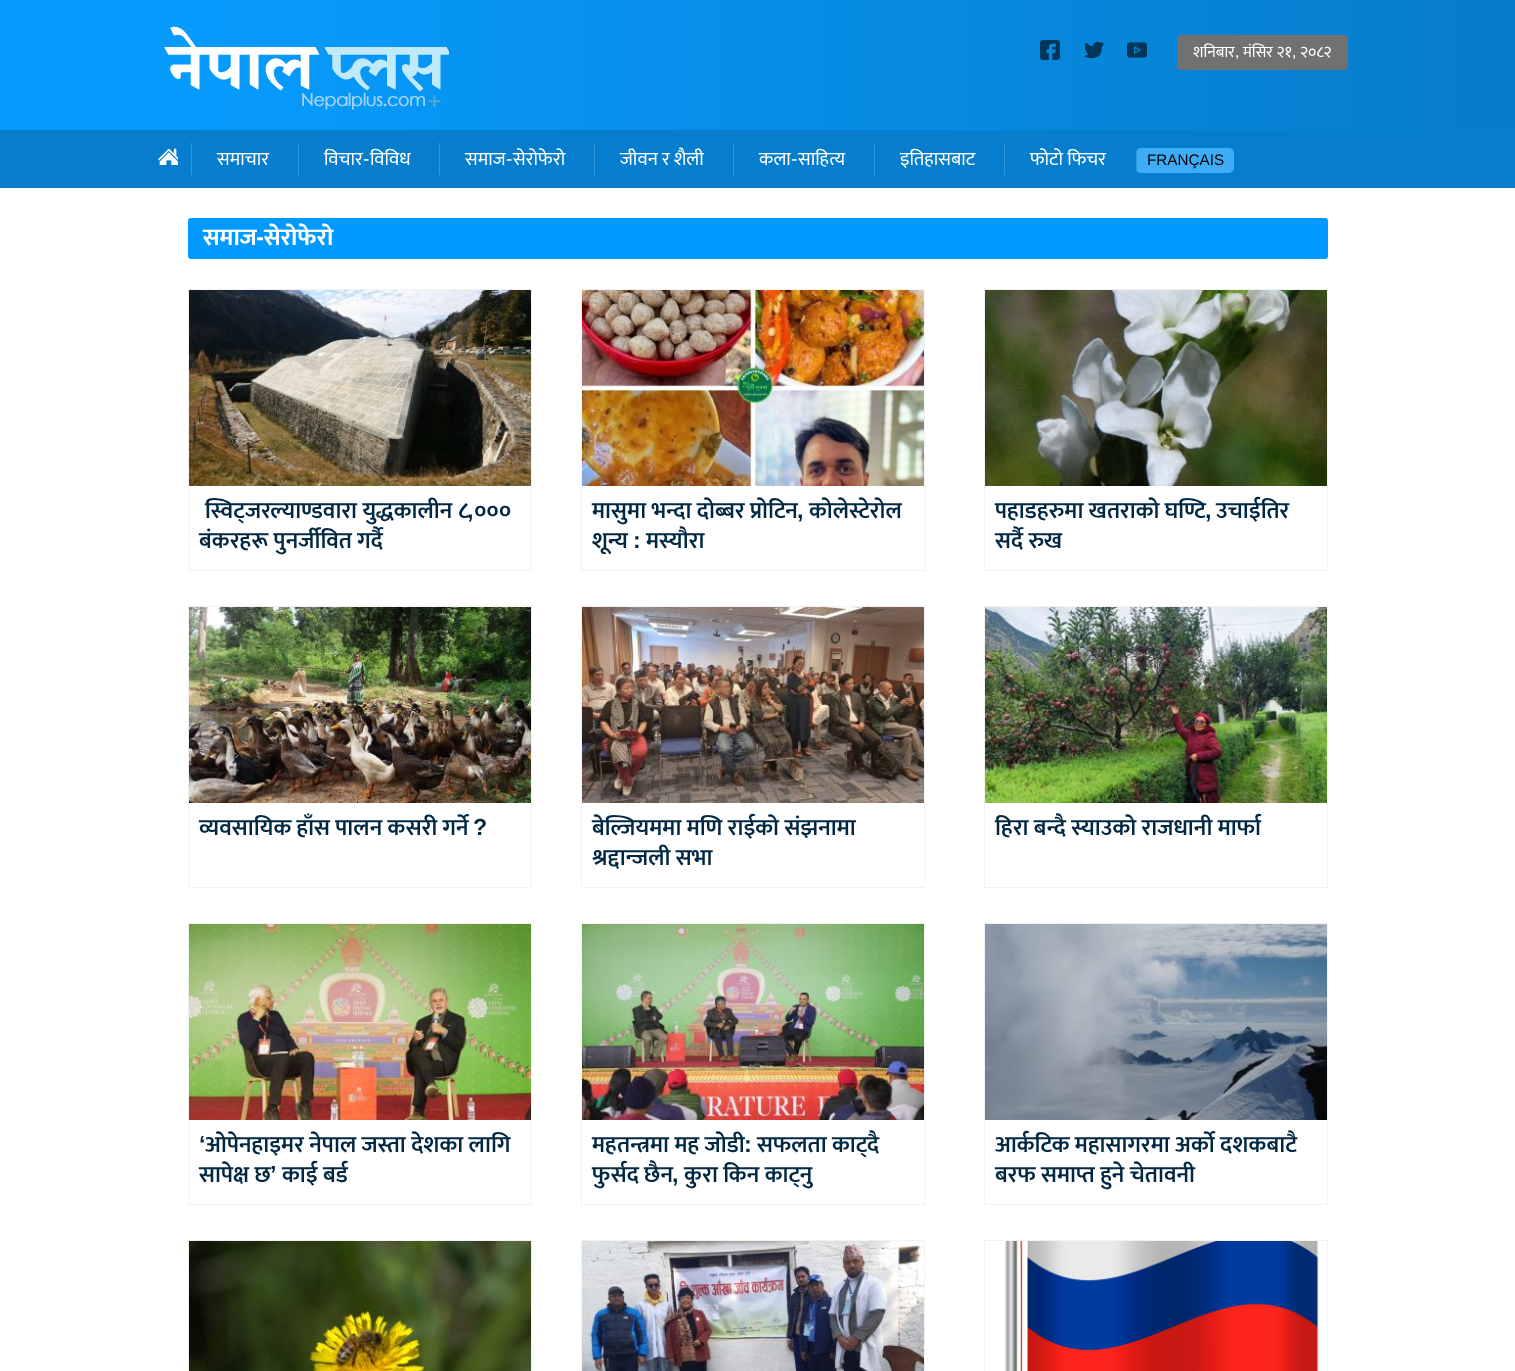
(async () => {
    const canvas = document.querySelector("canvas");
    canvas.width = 1515;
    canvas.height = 1371;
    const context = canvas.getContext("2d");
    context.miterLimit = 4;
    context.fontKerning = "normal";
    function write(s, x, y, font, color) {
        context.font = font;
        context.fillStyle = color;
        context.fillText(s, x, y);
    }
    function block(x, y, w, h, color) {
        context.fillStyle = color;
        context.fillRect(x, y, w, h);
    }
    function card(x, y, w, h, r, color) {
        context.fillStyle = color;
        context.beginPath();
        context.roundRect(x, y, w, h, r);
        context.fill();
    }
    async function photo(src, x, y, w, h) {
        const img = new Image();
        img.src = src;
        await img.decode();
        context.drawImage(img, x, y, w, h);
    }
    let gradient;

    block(0, 0, 1515, 1371, "rgb(255, 255, 255)");
    gradient = context.createLinearGradient(0, 94, 1515, 94);
    gradient.addColorStop(0.13, "rgb(7, 155, 253)");
    gradient.addColorStop(1, "rgb(6, 124, 202)");
    context.fillStyle = gradient;
    context.fillRect(0, 0, 1515, 130);
    await photo("media/1.png", 164, 26, 285, 84);
    await photo("media/2.png", 1040, 40, 20, 20);
    await photo("media/3.png", 1084, 41, 20, 18);
    await photo("media/4.png", 1127, 42, 20, 16);
    card(1177, 35, 171, 35, 4, "rgb(113, 113, 113)");
    write("शनिबार", 1193, 57, "16px Mukta", "rgb(255, 255, 255)");
    write(",", 1235, 57, "16px Liberation Sans", "rgb(255, 255, 255)");
    write("मंसिर २१", 1243, 57, "16px Mukta", "rgb(255, 255, 255)");
    write(",", 1292, 57, "16px Liberation Sans", "rgb(255, 255, 255)");
    write("२०८२", 1300, 57, "16px Mukta", "rgb(255, 255, 255)");
    block(0, 130, 1515, 58, "rgb(6, 126, 205)");
    await photo("media/5.png", 158, 148, 20, 17);
    write("समाचार", 217, 165, "19px Mukta", "rgb(255, 255, 255)");
    block(191, 143, 1, 32, "rgb(49, 152, 219)");
    write("विचार", 324, 165, "19px Mukta", "rgb(255, 255, 255)");
    block(298, 143, 1, 32, "rgb(49, 152, 219)");
    write("-", 363, 165, "19px Liberation Sans", "rgb(255, 255, 255)");
    write("विविध", 370, 165, "19px Mukta", "rgb(255, 255, 255)");
    write("समाज", 465, 165, "19px Mukta", "rgb(255, 255, 255)");
    block(439, 143, 1, 32, "rgb(49, 152, 219)");
    write("-", 506, 165, "19px Liberation Sans", "rgb(255, 255, 255)");
    write("सेरोफेरो", 513, 165, "19px Mukta", "rgb(255, 255, 255)");
    write("जीवन र शैली", 620, 165, "19px Mukta", "rgb(255, 255, 255)");
    block(594, 143, 1, 32, "rgb(49, 152, 219)");
    write("कला", 759, 165, "19px Mukta", "rgb(255, 255, 255)");
    block(733, 143, 1, 32, "rgb(49, 152, 219)");
    write("-", 791, 165, "19px Liberation Sans", "rgb(255, 255, 255)");
    write("साहित्य", 798, 165, "19px Mukta", "rgb(255, 255, 255)");
    write("इतिहासबाट", 900, 165, "19px Mukta", "rgb(255, 255, 255)");
    block(874, 143, 1, 32, "rgb(49, 152, 219)");
    write("फोटो फिचर", 1030, 165, "19px Mukta", "rgb(255, 255, 255)");
    block(1004, 143, 1, 32, "rgb(49, 152, 219)");
    card(1136, 148, 98, 25, 5, "rgb(62, 173, 247)");
    write("FRANÇAIS", 1147, 165, "15.25px Liberation Sans", "rgb(0, 0, 0)");
    block(1136, 151, 1, 20, "rgb(49, 152, 219)");
    card(188, 218, 1140, 41, 3, "rgb(0, 153, 255)");
    write("समाज", 203, 245, "bold 24px Mukta", "rgb(255, 255, 255)");
    write("-", 256, 245, "bold 24px Liberation Sans", "rgb(255, 255, 255)");
    write("सेरोफेरो", 264, 245, "bold 24px Mukta", "rgb(255, 255, 255)");
    context.strokeStyle = "rgb(242, 242, 242)";
    context.strokeRect(188.5, 289.5, 343, 281);
    await photo("media/6.png", 189, 290, 342, 196);
    write("स्विट्जरल्याण्डवारा युद्धकालीन ८", 205, 518, "600 23.25px Mukta", "rgb(1, 40, 66)");
    write("०००", 474, 518, "600 23.25px Mukta", "rgb(1, 40, 66)");
    write(",", 467, 518, "bold 23.25px Liberation Sans", "rgb(1, 40, 66)");
    write("बंकरहरू पुनर्जीवित गर्दै", 199, 548, "600 23.25px Mukta", "rgb(1, 40, 66)");
    context.strokeRect(581.5, 289.5, 343, 281);
    await photo("media/7.png", 582, 290, 342, 196);
    write("मासुमा भन्दा दोब्बर प्रोटिन", 592, 518, "600 23.25px Mukta", "rgb(1, 40, 66)");
    write(",", 797, 518, "bold 23.25px Liberation Sans", "rgb(1, 40, 66)");
    write("कोलेस्टेरोल", 809, 518, "600 23.25px Mukta", "rgb(1, 40, 66)");
    write("शून्य", 592, 548, "600 23.25px Mukta", "rgb(1, 40, 66)");
    write(":", 633, 548, "bold 23.25px Liberation Sans", "rgb(1, 40, 66)");
    write("मस्यौरा", 646, 548, "600 23.25px Mukta", "rgb(1, 40, 66)");
    context.strokeRect(984.5, 289.5, 343, 281);
    await photo("media/8.png", 985, 290, 342, 196);
    write("पहाडहरुमा खतराको घण्टि", 995, 518, "600 23.25px Mukta", "rgb(1, 40, 66)");
    write(",", 1205, 518, "bold 23.25px Liberation Sans", "rgb(1, 40, 66)");
    write("उचाईतिर", 1216, 518, "600 23.25px Mukta", "rgb(1, 40, 66)");
    write("सर्दै रुख", 995, 548, "600 23.25px Mukta", "rgb(1, 40, 66)");
    context.strokeRect(188.5, 606.5, 343, 281);
    await photo("media/9.png", 189, 607, 342, 196);
    write("व्यवसायिक हाँस पालन कसरी गर्ने", 199, 835, "600 23.25px Mukta", "rgb(1, 40, 66)");
    write("?", 473, 835, "bold 23.25px Liberation Sans", "rgb(1, 40, 66)");
    context.strokeRect(581.5, 606.5, 343, 281);
    await photo("media/10.png", 582, 607, 342, 196);
    write("बेल्जियममा मणि राईको संझनामा", 592, 835, "600 23.25px Mukta", "rgb(1, 40, 66)");
    write("श्रद्दान्जली सभा", 592, 865, "600 23.25px Mukta", "rgb(1, 40, 66)");
    context.strokeRect(984.5, 606.5, 343, 281);
    await photo("media/11.png", 985, 607, 342, 196);
    write("हिरा बन्दै स्याउको राजधानी मार्फा", 995, 835, "600 23.25px Mukta", "rgb(1, 40, 66)");
    context.strokeRect(188.5, 923.5, 343, 281);
    await photo("media/12.png", 189, 924, 342, 196);
    write("‘", 199, 1152, "bold 23.25px Liberation Sans", "rgb(1, 40, 66)");
    write("ओपेनहाइमर नेपाल जस्ता देशका लागि", 205, 1152, "600 23.25px Mukta", "rgb(1, 40, 66)");
    write("सापेक्ष छ", 199, 1182, "600 23.25px Mukta", "rgb(1, 40, 66)");
    write("’", 270, 1182, "bold 23.25px Liberation Sans", "rgb(1, 40, 66)");
    write("काई बर्ड", 282, 1182, "600 23.25px Mukta", "rgb(1, 40, 66)");
    context.strokeRect(581.5, 923.5, 343, 281);
    await photo("media/13.png", 582, 924, 342, 196);
    write("महतन्त्रमा मह जोडी", 592, 1152, "600 23.25px Mukta", "rgb(1, 40, 66)");
    write(":", 744, 1152, "bold 23.25px Liberation Sans", "rgb(1, 40, 66)");
    write("सफलता काट्दै", 757, 1152, "600 23.25px Mukta", "rgb(1, 40, 66)");
    write("फुर्सद छैन", 592, 1182, "600 23.25px Mukta", "rgb(1, 40, 66)");
    write(",", 672, 1182, "bold 23.25px Liberation Sans", "rgb(1, 40, 66)");
    write("कुरा किन काट्नु", 684, 1182, "600 23.25px Mukta", "rgb(1, 40, 66)");
    context.strokeRect(984.5, 923.5, 343, 281);
    await photo("media/14.png", 985, 924, 342, 196);
    write("आर्कटिक महासागरमा अर्को दशकबाटै", 995, 1152, "600 23.25px Mukta", "rgb(1, 40, 66)");
    write("बरफ समाप्त हुने चेतावनी", 995, 1182, "600 23.25px Mukta", "rgb(1, 40, 66)");
    context.strokeRect(188.5, 1240.5, 343, 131);
    await photo("media/15.png", 189, 1241, 342, 130);
    context.strokeRect(581.5, 1240.5, 343, 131);
    await photo("media/16.png", 582, 1241, 342, 130);
    context.strokeRect(984.5, 1240.5, 343, 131);
    await photo("media/17.png", 1005, 1241, 314, 130);
})();
